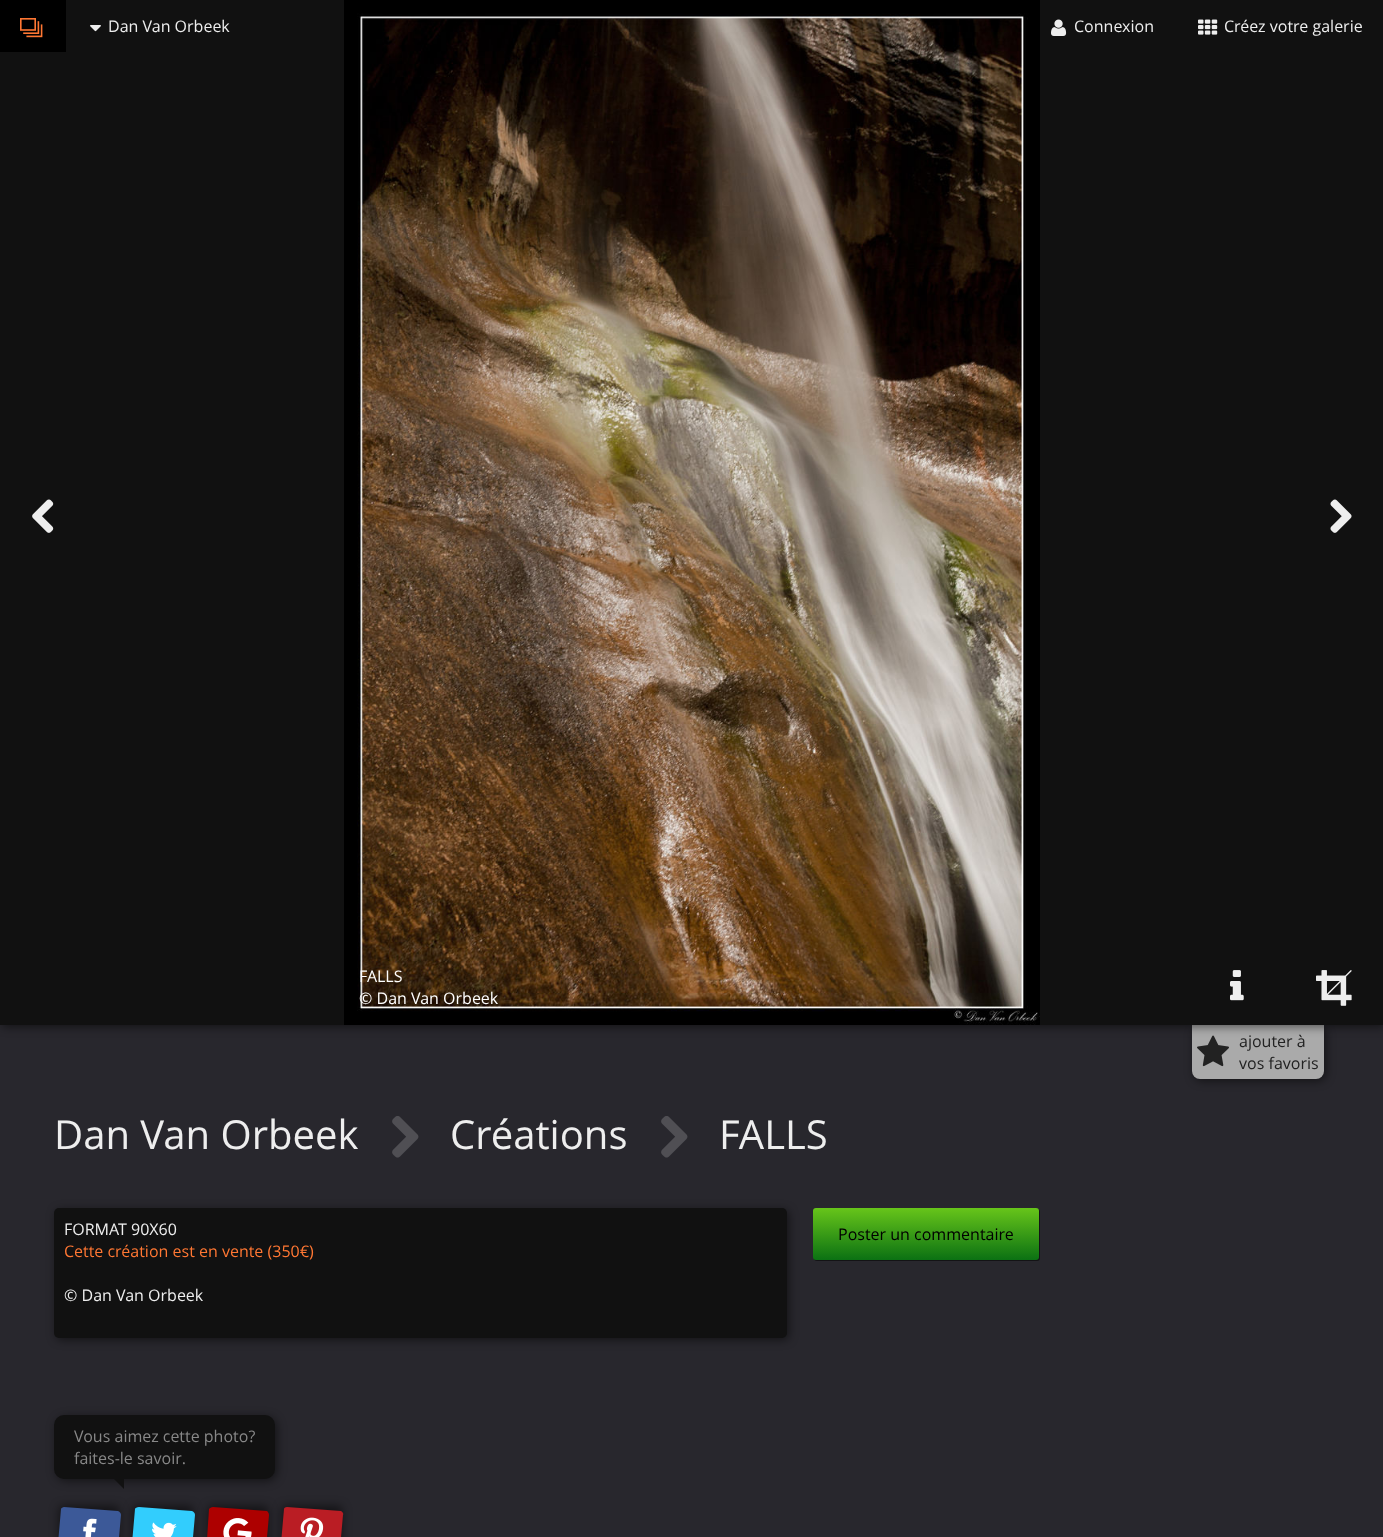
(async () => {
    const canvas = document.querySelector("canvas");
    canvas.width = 1383;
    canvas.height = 1537;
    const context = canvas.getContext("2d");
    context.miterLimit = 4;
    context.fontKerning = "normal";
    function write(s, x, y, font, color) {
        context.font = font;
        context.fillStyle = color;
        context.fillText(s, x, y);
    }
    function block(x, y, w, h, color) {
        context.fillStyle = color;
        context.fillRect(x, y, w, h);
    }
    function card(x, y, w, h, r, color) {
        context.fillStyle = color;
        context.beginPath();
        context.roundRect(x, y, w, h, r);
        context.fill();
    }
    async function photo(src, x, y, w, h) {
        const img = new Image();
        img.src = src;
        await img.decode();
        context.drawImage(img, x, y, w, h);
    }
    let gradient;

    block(0, 0, 1383, 1537, "rgb(40, 39, 45)");
    context.fillStyle = "rgba(0, 0, 0, 0.5)";
    context.filter = "blur(5px)";
    context.beginPath();
    context.roundRect(1194, 1027, 132, 54, 8);
    context.fill();
    context.filter = "none";
    context.fillStyle = "rgb(170, 170, 170)";
    context.beginPath();
    context.roundRect(1192, 1025, 132, 54, [0, 0, 8, 8]);
    context.fill();
    await photo("media/10.png", 1197, 1035, 32, 32);
    context.fillStyle = "rgba(0, 0, 0, 0.5)";
    context.filter = "blur(5px)";
    context.beginPath();
    context.rect(2, 2, 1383, 1025);
    context.fill();
    context.filter = "none";
    block(0, 0, 1383, 1025, "rgb(17, 17, 17)");
    block(0, 0, 66, 52, "rgb(0, 0, 0)");
    await photo("media/1.png", 20, 18, 23, 20);
    await photo("media/2.png", 90, 25, 11, 7);
    write("Dan Van Orbeek", 108, 32, "16px Open Sans", "rgb(238, 238, 238)");
    await photo("media/3.png", 1051, 19, 16, 17);
    write("Connexion", 1074, 32, "16px Open Sans", "rgb(238, 238, 238)");
    await photo("media/4.png", 1198, 19, 20, 16);
    write("Créez votre galerie", 1224, 32, "16px Open Sans", "rgb(238, 238, 238)");
    block(344, 0, 696, 1025, "rgb(0, 0, 0)");
    await photo("media/5.png", 32, 499, 22, 34);
    await photo("media/6.png", 357, 13, 683, 1012);
    await photo("media/7.png", 1330, 499, 22, 34);
    write("FALLS", 359, 982, "16px Open Sans", "rgb(255, 255, 255)");
    write("© Dan Van Orbeek", 359, 1004, "16px Open Sans", "rgb(255, 255, 255)");
    await photo("media/8.png", 1230, 970, 14, 31);
    await photo("media/9.png", 1316, 970, 36, 36);
    write("ajouter à", 1239, 1047, "16px Open Sans", "rgb(34, 34, 34)");
    write("vos favoris", 1239, 1069, "16px Open Sans", "rgb(34, 34, 34)");
    write("Dan Van Orbeek", 54, 1149, "40px Open Sans", "rgb(238, 238, 238)");
    await photo("media/11.png", 392, 1116, 27, 42);
    write("Créations", 450, 1149, "40px Open Sans", "rgb(238, 238, 238)");
    await photo("media/11.png", 661, 1116, 27, 42);
    write("FALLS", 719, 1149, "40px Open Sans", "rgb(238, 238, 238)");
    context.fillStyle = "rgba(0, 0, 0, 0.5)";
    context.filter = "blur(5px)";
    context.beginPath();
    context.roundRect(56, 1210, 733, 130, 5);
    context.fill();
    context.filter = "none";
    card(54, 1208, 733, 130, 5, "rgb(17, 17, 17)");
    write("FORMAT 90X60", 64, 1235, "16px Open Sans", "rgb(238, 238, 238)");
    write("Cette création est en vente (350€)", 64, 1257, "16px Open Sans", "rgb(255, 119, 51)");
    write("© Dan Van Orbeek", 64, 1301, "16px Open Sans", "rgb(238, 238, 238)");
    context.fillStyle = "rgba(0, 0, 0, 0.5)";
    context.filter = "blur(0.5px)";
    context.beginPath();
    context.roundRect(814, 1209, 226, 52, 3);
    context.fill();
    context.filter = "none";
    gradient = context.createLinearGradient(926, 1208, 926, 1260);
    gradient.addColorStop(0, "rgb(103, 197, 26)");
    gradient.addColorStop(1, "rgb(11, 113, 19)");
    context.fillStyle = gradient;
    context.beginPath();
    context.roundRect(813, 1208, 226, 52, 3);
    context.fill();
    write("Poster un commentaire", 838, 1240, "16px Open Sans", "rgb(0, 0, 0)");
    context.fillStyle = "rgba(0, 0, 0, 0.5)";
    context.filter = "blur(5px)";
    context.beginPath();
    context.roundRect(56, 1417, 221, 64, 10);
    context.fill();
    context.filter = "none";
    card(54, 1415, 221, 64, 10, "rgb(17, 17, 17)");
    write("Vous aimez cette photo?", 74, 1442, "16px Open Sans", "rgb(136, 136, 136)");
    write("faites-le savoir.", 74, 1464, "16px Open Sans", "rgb(136, 136, 136)");
    context.fillStyle = "rgb(17, 17, 17)";
    context.beginPath();
    context.moveTo(114, 1479);
    context.lineTo(124, 1479);
    context.lineTo(124, 1489);
    context.closePath();
    context.fill();
    context.fillStyle = "rgba(0, 0, 0, 0.5)";
    context.filter = "blur(5px)";
    context.beginPath();
    context.roundRect(59, 1506, 60, 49, 3);
    context.fill();
    context.filter = "none";
    context.fillStyle = "rgb(60, 89, 152)";
    context.beginPath();
    context.moveTo(64, 1507);
    context.lineTo(118, 1511);
    context.bezierCurveTo(120, 1512, 121, 1513, 121, 1515);
    context.lineTo(117, 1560);
    context.lineTo(57, 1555);
    context.lineTo(61, 1509);
    context.bezierCurveTo(61, 1508, 63, 1507, 64, 1507);
    context.closePath();
    context.fill();
    await photo("media/12.png", 83, 1518, 14, 19);
    context.fillStyle = "rgba(0, 0, 0, 0.5)";
    context.filter = "blur(5px)";
    context.beginPath();
    context.roundRect(133, 1506, 60, 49, 3);
    context.fill();
    context.filter = "none";
    context.fillStyle = "rgb(50, 205, 253)";
    context.beginPath();
    context.moveTo(139, 1507);
    context.lineTo(192, 1511);
    context.bezierCurveTo(194, 1512, 195, 1513, 195, 1515);
    context.lineTo(191, 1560);
    context.lineTo(131, 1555);
    context.lineTo(135, 1509);
    context.bezierCurveTo(135, 1508, 137, 1507, 139, 1507);
    context.closePath();
    context.fill();
    await photo("media/13.png", 152, 1522, 25, 15);
    context.fillStyle = "rgba(0, 0, 0, 0.5)";
    context.filter = "blur(5px)";
    context.beginPath();
    context.roundRect(208, 1506, 60, 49, 3);
    context.fill();
    context.filter = "none";
    context.fillStyle = "rgb(173, 0, 0)";
    context.beginPath();
    context.moveTo(213, 1507);
    context.lineTo(267, 1511);
    context.bezierCurveTo(268, 1512, 269, 1513, 269, 1515);
    context.lineTo(265, 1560);
    context.lineTo(206, 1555);
    context.lineTo(209, 1509);
    context.bezierCurveTo(210, 1508, 211, 1507, 213, 1507);
    context.closePath();
    context.fill();
    await photo("media/14.png", 223, 1518, 29, 19);
    context.fillStyle = "rgba(0, 0, 0, 0.5)";
    context.filter = "blur(5px)";
    context.beginPath();
    context.roundRect(282, 1506, 60, 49, 3);
    context.fill();
    context.filter = "none";
    context.fillStyle = "rgb(186, 29, 36)";
    context.beginPath();
    context.moveTo(287, 1507);
    context.lineTo(341, 1511);
    context.bezierCurveTo(342, 1512, 344, 1513, 343, 1515);
    context.lineTo(339, 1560);
    context.lineTo(280, 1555);
    context.lineTo(284, 1509);
    context.bezierCurveTo(284, 1508, 285, 1507, 287, 1507);
    context.closePath();
    context.fill();
    await photo("media/15.png", 300, 1517, 24, 20);
})();
